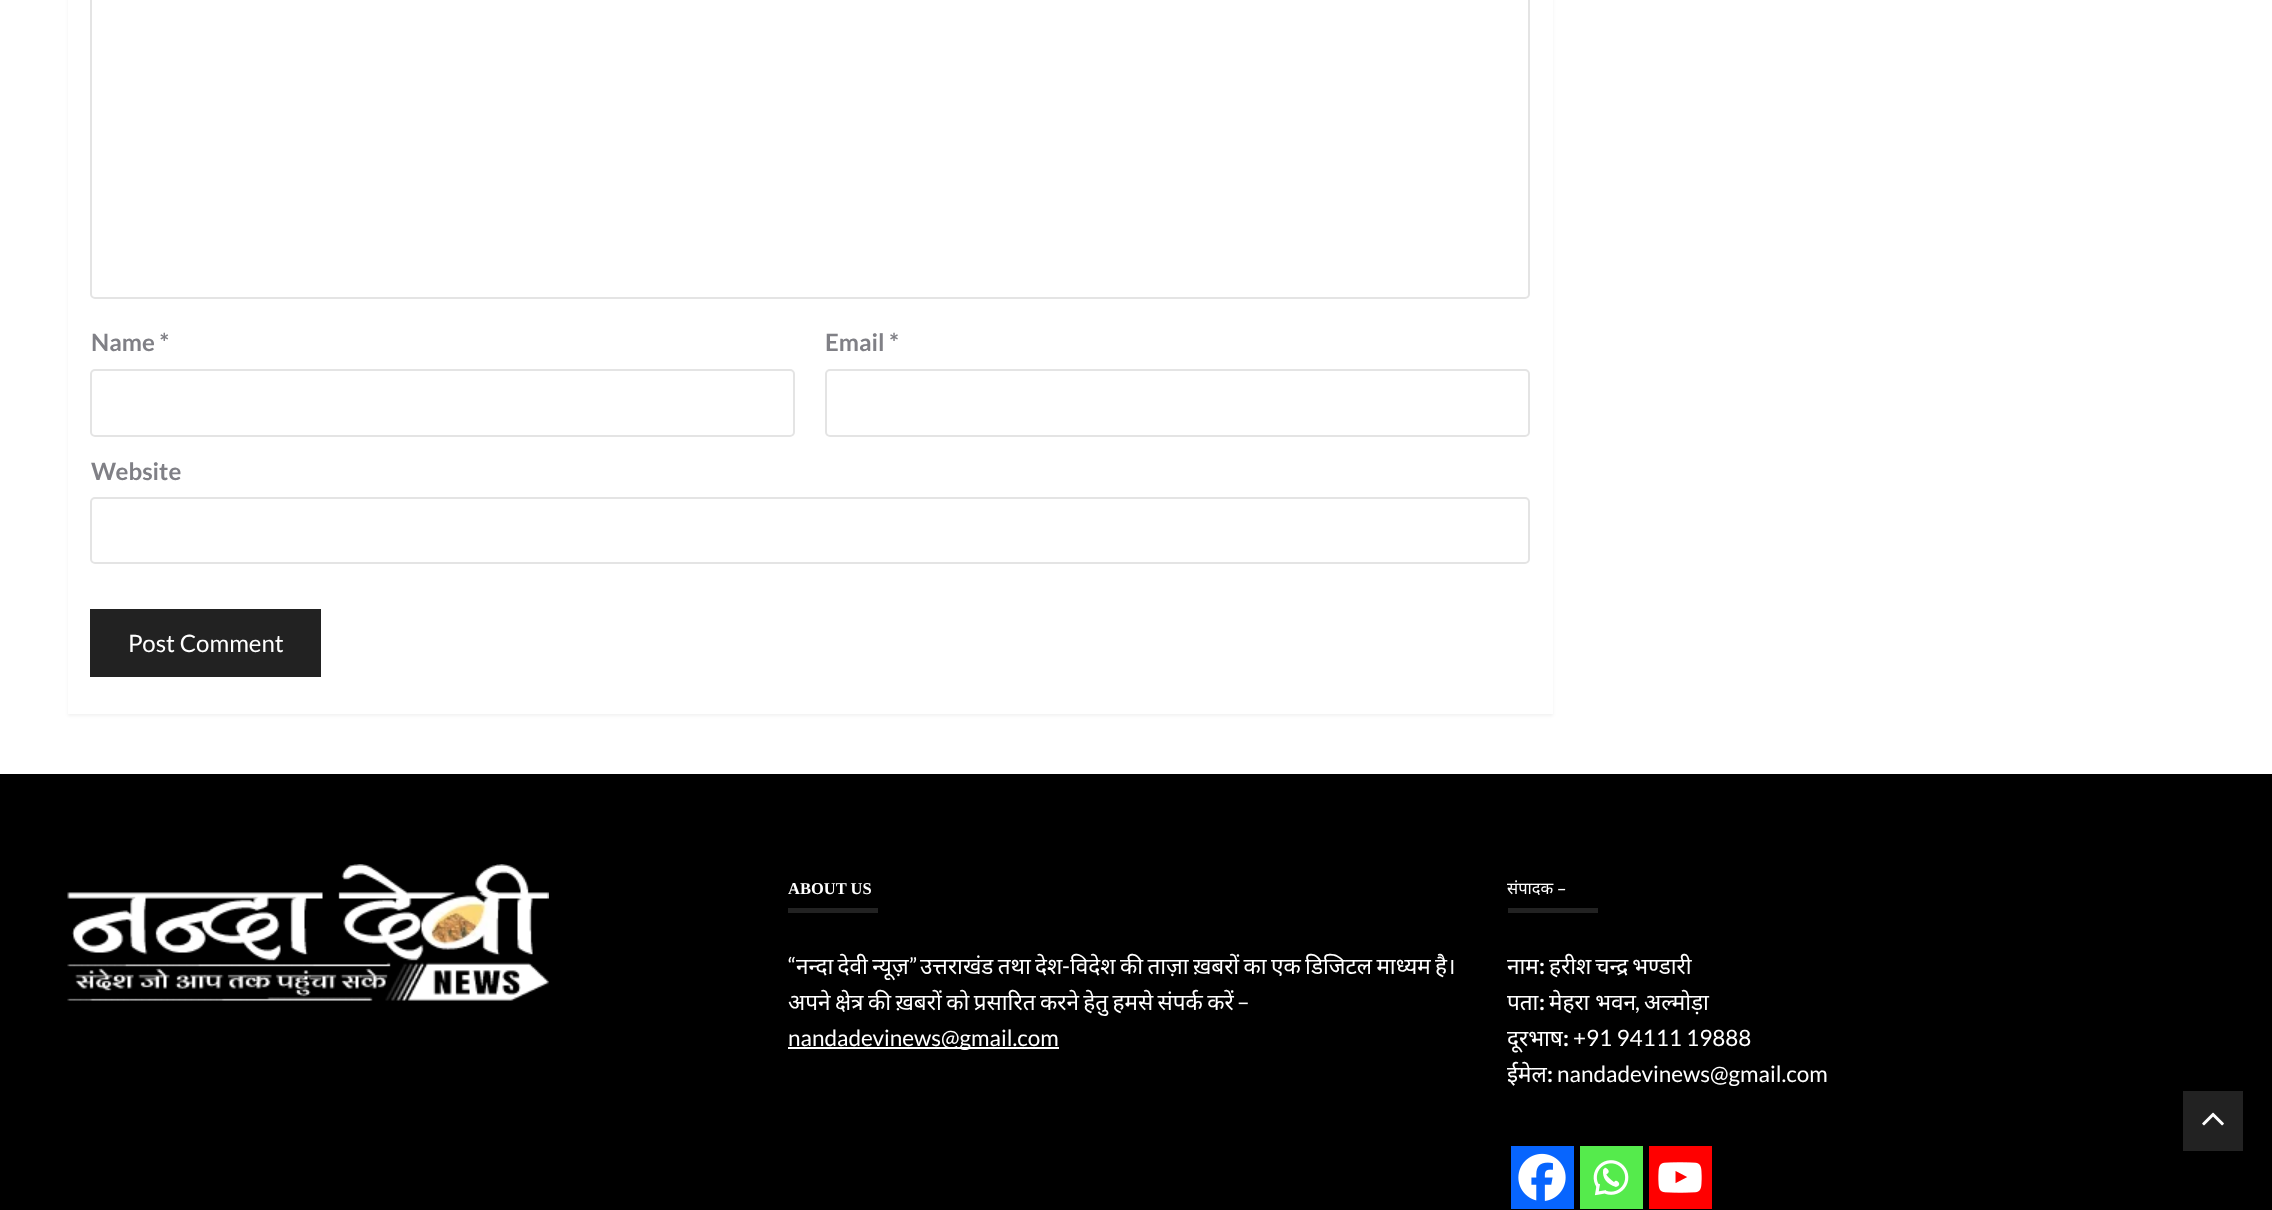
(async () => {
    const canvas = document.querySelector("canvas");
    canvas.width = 2272;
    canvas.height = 1210;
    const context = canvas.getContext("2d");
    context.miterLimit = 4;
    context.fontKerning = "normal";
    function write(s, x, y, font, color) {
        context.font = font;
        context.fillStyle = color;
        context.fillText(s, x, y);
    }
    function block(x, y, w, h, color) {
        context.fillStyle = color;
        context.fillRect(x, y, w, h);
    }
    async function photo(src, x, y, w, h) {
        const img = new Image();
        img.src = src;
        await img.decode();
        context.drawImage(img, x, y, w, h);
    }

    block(0, 0, 2272, 1210, "rgb(255, 255, 255)");
    context.fillStyle = "rgba(0, 0, 0, 0.05)";
    context.filter = "blur(1.5px)";
    context.beginPath();
    context.rect(68, -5, 1485, 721);
    context.fill();
    context.filter = "none";
    block(68, 0, 1485, 714, "rgb(255, 255, 255)");
    context.beginPath();
    context.roundRect(91, -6, 1438, 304, 4);
    context.strokeStyle = "rgb(228, 228, 228)";
    context.lineWidth = 2;
    context.stroke();
    write("Name *", 91, 351, "bold 24px Lato", "rgb(128, 128, 134)");
    context.beginPath();
    context.roundRect(91, 370, 703, 66, 4);
    context.stroke();
    write("Email *", 825, 351, "bold 24px Lato", "rgb(128, 128, 134)");
    context.beginPath();
    context.roundRect(826, 370, 703, 66, 4);
    context.stroke();
    write("Website", 91, 480, "bold 24px Lato", "rgb(128, 128, 134)");
    context.beginPath();
    context.roundRect(91, 498, 1438, 65, 4);
    context.stroke();
    block(90, 609, 231, 68, "rgb(34, 34, 34)");
    write("Post Comment", 128, 652, "24px Lato", "rgb(255, 255, 255)");
    block(0, 774, 2272, 436, "rgb(0, 0, 0)");
    await photo("media/1.png", 67, 864, 482, 137);
    write("ABOUT US", 788, 894, "bold 16.5px Liberation Serif", "rgb(255, 255, 255)");
    block(788, 908, 90, 5, "rgb(34, 34, 34)");
    write("“", 788, 974, "22.5px Lato", "rgb(255, 255, 255)");
    context.wordSpacing = "-1.5px";
    write("नन्दा देवी न्यूज़", 796, 974, "22.5px Noto Sans", "rgb(255, 255, 255)");
    context.wordSpacing = "0px";
    write("”", 909, 974, "22.5px Lato", "rgb(255, 255, 255)");
    context.wordSpacing = "-1.5px";
    write("उत्तराखंड तथा देश", 920, 974, "22.5px Noto Sans", "rgb(255, 255, 255)");
    write("विदेश की ताज़ा ख़बरों का एक डिजिटल माध्यम है।", 1070, 974, "22.5px Noto Sans", "rgb(255, 255, 255)");
    context.wordSpacing = "0px";
    write("-", 1062, 974, "22.5px Lato", "rgb(255, 255, 255)");
    context.wordSpacing = "-1.4px";
    write("अपने क्षेत्र की ख़बरों को प्रसारित करने हेतु हमसे संपर्क करें", 788, 1010, "22.5px Noto Sans", "rgb(255, 255, 255)");
    context.wordSpacing = "0px";
    write("–", 1237, 1010, "22.5px Lato", "rgb(255, 255, 255)");
    block(788, 1047, 271, 2, "rgb(255, 255, 255)");
    write("nandadevinews@gmail.com", 788, 1046, "22.5px Lato", "rgb(255, 255, 255)");
    write("संपादक –", 1507, 894, "16.5px Noto Sans", "rgb(255, 255, 255)");
    block(1508, 908, 90, 5, "rgb(34, 34, 34)");
    write("नाम", 1507, 974, "22.5px Noto Sans", "rgb(255, 255, 255)");
    write(":", 1539, 974, "bold 22.5px Lato", "rgb(255, 255, 255)");
    context.wordSpacing = "-2px";
    write("हरीश चन्द्र भण्डारी", 1549, 974, "22.5px Noto Sans", "rgb(255, 255, 255)");
    context.wordSpacing = "0px";
    write("पता", 1507, 1010, "22.5px Noto Sans", "rgb(255, 255, 255)");
    write(":", 1539, 1010, "bold 22.5px Lato", "rgb(255, 255, 255)");
    write("मेहरा भवन", 1549, 1010, "22.5px Noto Sans", "rgb(255, 255, 255)");
    write("अल्मोड़ा", 1644, 1010, "22.5px Noto Sans", "rgb(255, 255, 255)");
    write(",", 1635, 1010, "22.5px Lato", "rgb(255, 255, 255)");
    write("दूरभाष", 1507, 1046, "22.5px Noto Sans", "rgb(255, 255, 255)");
    write(":", 1563, 1046, "bold 22.5px Lato", "rgb(255, 255, 255)");
    write("+91 94111 19888", 1573, 1046, "22.5px Lato", "rgb(255, 255, 255)");
    write("ईमेल", 1507, 1082, "22.5px Noto Sans", "rgb(255, 255, 255)");
    write(":", 1547, 1082, "bold 22.5px Lato", "rgb(255, 255, 255)");
    write("nandadevinews@gmail.com", 1557, 1082, "22.5px Lato", "rgb(255, 255, 255)");
    block(1511, 1146, 63, 63, "rgb(7, 101, 254)");
    await photo("media/2.png", 1518, 1153, 48, 48);
    block(1580, 1146, 63, 63, "rgb(85, 235, 76)");
    await photo("media/3.png", 1593, 1160, 36, 36);
    block(1649, 1146, 63, 63, "rgb(255, 0, 0)");
    await photo("media/4.png", 1658, 1162, 44, 31);
    block(2183, 1091, 60, 60, "rgb(34, 34, 34)");
    await photo("media/5.png", 2202, 1112, 22, 14);
})();
